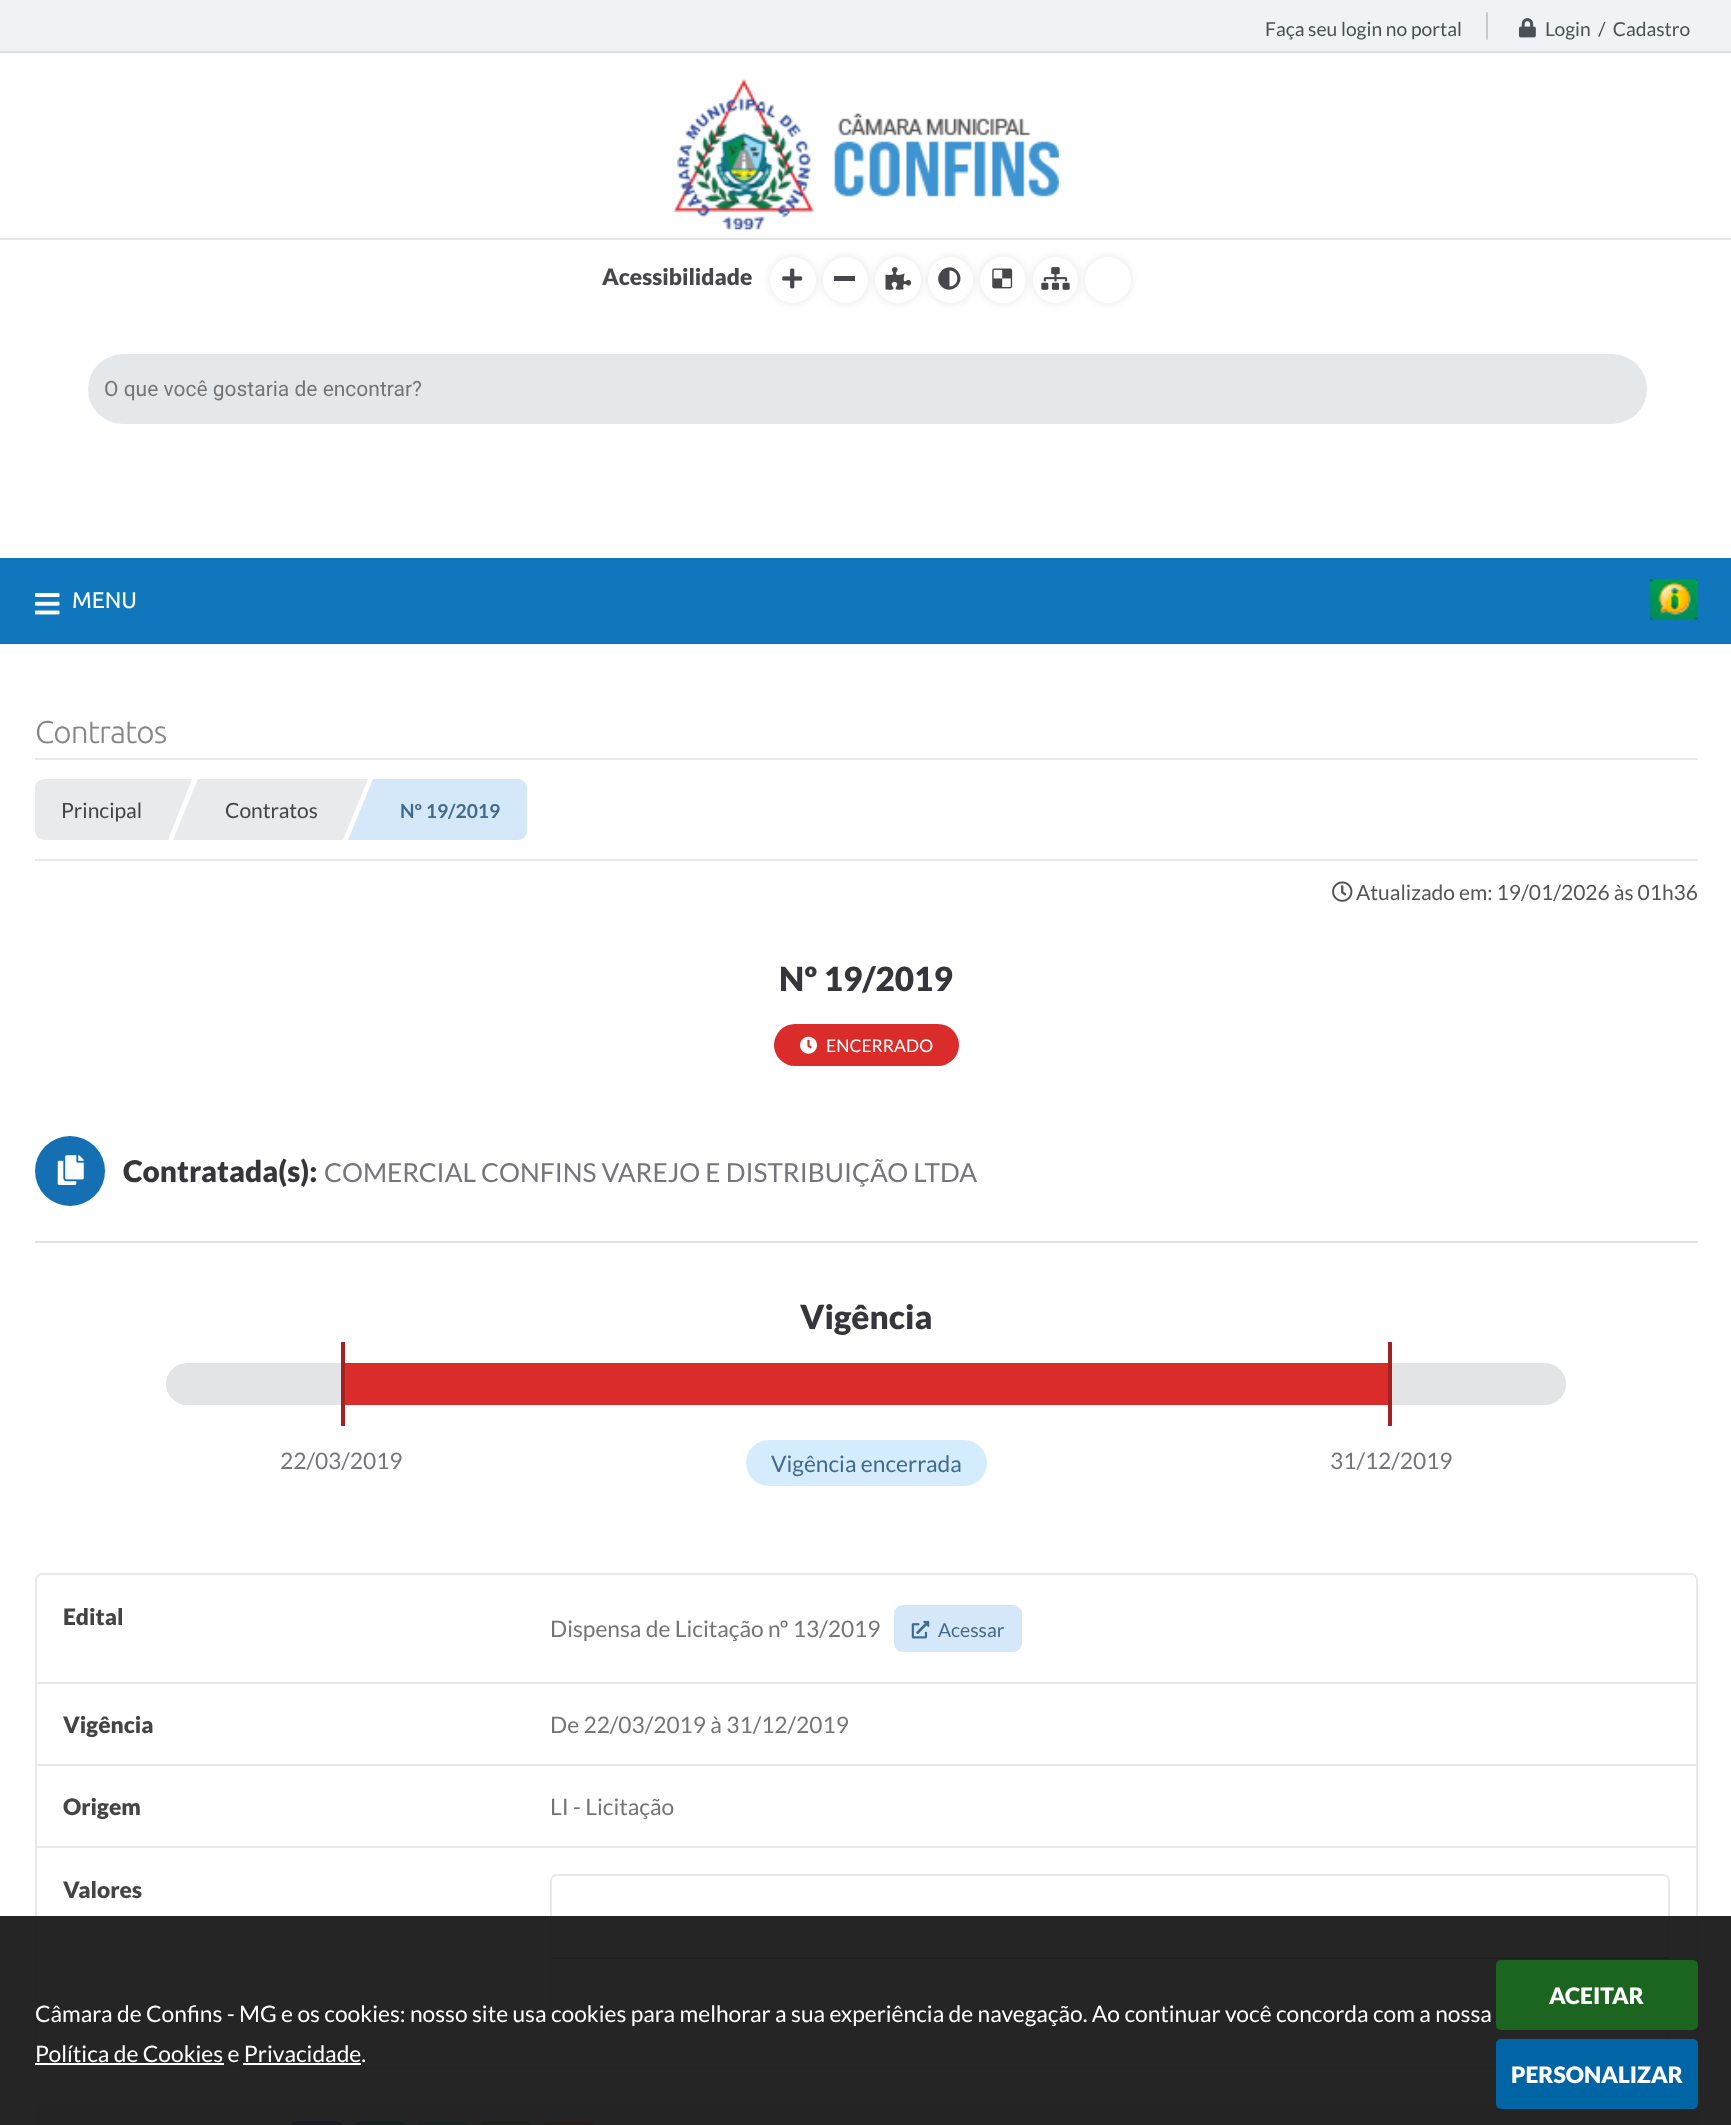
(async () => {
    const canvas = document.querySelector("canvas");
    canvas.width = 1731;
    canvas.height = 2125;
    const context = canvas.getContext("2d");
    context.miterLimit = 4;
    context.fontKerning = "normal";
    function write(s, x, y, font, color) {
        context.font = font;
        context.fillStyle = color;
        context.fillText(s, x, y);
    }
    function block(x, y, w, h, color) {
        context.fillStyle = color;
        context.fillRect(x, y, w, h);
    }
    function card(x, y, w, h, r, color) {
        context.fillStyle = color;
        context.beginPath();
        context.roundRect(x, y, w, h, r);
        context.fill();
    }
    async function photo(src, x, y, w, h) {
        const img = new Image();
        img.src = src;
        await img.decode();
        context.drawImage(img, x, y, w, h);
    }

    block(0, 0, 1731, 2125, "rgb(255, 255, 255)");
    block(0, 0, 1731, 51, "rgb(240, 242, 245)");
    block(0, 51, 1731, 2, "rgb(221, 225, 229)");
    write("Faça seu login no portal", 1265, 36, "19.25px Lato", "rgb(73, 81, 86)");
    card(1486, 12, 2, 28, 1, "rgb(196, 202, 207)");
    await photo("media/1.png", 1519, 18, 17, 20);
    write("Login  /  Cadastro", 1545, 36, "19.25px Lato", "rgb(73, 81, 86)");
    context.beginPath();
    context.roundRect(36, 1574, 1661, 494, 6);
    context.strokeStyle = "rgb(231, 233, 235)";
    context.lineWidth = 2;
    context.stroke();
    context.beginPath();
    context.roundRect(551, 1875, 1118, 165, 6);
    context.stroke();
    block(551, 1957, 1117, 2, "rgb(153, 153, 153)");
    card(35, 2104, 1663, 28, 7, "rgb(235, 237, 238)");
    card(291, 2121, 52, 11, 7, "rgb(38, 117, 197)");
    card(354, 2121, 52, 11, 7, "rgb(50, 144, 240)");
    card(417, 2121, 52, 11, 7, "rgb(96, 201, 255)");
    card(480, 2121, 52, 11, 7, "rgb(64, 210, 119)");
    card(543, 2121, 52, 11, 7, "rgb(255, 148, 62)");
    block(0, 1916, 1731, 209, "rgba(25, 25, 25, 0.95)");
    write("Câmara de Confins - MG e os cookies: nosso site usa cookies para melhorar a sua experiência de navegação. Ao continuar você concorda com a nossa", 35, 2022, "22.75px Lato", "rgb(255, 255, 255)");
    write("Política de Cookies e Privacidade.", 35, 2062, "22.75px Lato", "rgb(255, 255, 255)");
    block(35, 2063, 189, 2, "rgb(255, 255, 255)");
    block(243, 2063, 118, 2, "rgb(255, 255, 255)");
    card(1496, 1960, 202, 70, 5, "rgb(27, 101, 32)");
    write("ACEITAR", 1549, 2004, "900 22.75px Lato", "rgb(255, 255, 255)");
    card(1496, 2039, 202, 70, 5, "rgb(1, 100, 164)");
    write("PERSONALIZAR", 1511, 2083, "900 22.75px Lato", "rgb(255, 255, 255)");
    await photo("media/2.png", 673, 78, 386, 152);
    block(0, 238, 1731, 2, "rgb(230, 230, 230)");
    write("Acessibilidade", 602, 285, "900 22.75px Lato", "rgb(71, 71, 75)");
    context.fillStyle = "rgba(0, 0, 0, 0.1)";
    context.filter = "blur(4.5px)";
    context.beginPath();
    context.roundRect(770, 257, 46, 46, 23);
    context.fill();
    context.filter = "none";
    context.fillStyle = "rgb(255, 255, 255)";
    context.beginPath();
    context.arc(793, 280, 23, 0, Math.PI * 2);
    context.fill();
    await photo("media/3.png", 782, 268, 21, 21);
    context.fillStyle = "rgba(0, 0, 0, 0.1)";
    context.filter = "blur(4.5px)";
    context.beginPath();
    context.roundRect(823, 257, 45, 46, 22.5);
    context.fill();
    context.filter = "none";
    card(823, 257, 45, 46, 22.5, "rgb(255, 255, 255)");
    block(834, 276, 21, 5, "rgb(71, 71, 75)");
    context.fillStyle = "rgba(0, 0, 0, 0.1)";
    context.filter = "blur(4.5px)";
    context.beginPath();
    context.roundRect(875, 257, 46, 46, 23);
    context.fill();
    context.filter = "none";
    context.fillStyle = "rgb(255, 255, 255)";
    context.beginPath();
    context.arc(898, 280, 23, 0, Math.PI * 2);
    context.fill();
    await photo("media/4.png", 885, 267, 27, 23);
    context.fillStyle = "rgba(0, 0, 0, 0.1)";
    context.filter = "blur(4.5px)";
    context.beginPath();
    context.roundRect(928, 257, 45, 46, 22.5);
    context.fill();
    context.filter = "none";
    card(928, 257, 45, 46, 22.5, "rgb(255, 255, 255)");
    context.fillStyle = "rgb(71, 71, 75)";
    context.beginPath();
    context.moveTo(941.5, 286.5);
    context.bezierCurveTo(931.5, 276, 947, 260.5, 957, 270.5);
    context.bezierCurveTo(967.5, 281, 952, 296.5, 941.5, 286.5);
    context.closePath();
    context.moveTo(949.5, 286.5);
    context.bezierCurveTo(960, 286.5, 960, 270.5, 949.5, 270.5);
    context.closePath();
    context.fill();
    context.fillStyle = "rgba(0, 0, 0, 0.1)";
    context.filter = "blur(4.5px)";
    context.beginPath();
    context.roundRect(980, 257, 46, 46, 23);
    context.fill();
    context.filter = "none";
    context.fillStyle = "rgb(255, 255, 255)";
    context.beginPath();
    context.arc(1003, 280, 23, 0, Math.PI * 2);
    context.fill();
    await photo("media/5.png", 992, 268, 21, 21);
    context.fillStyle = "rgba(0, 0, 0, 0.1)";
    context.filter = "blur(4.5px)";
    context.beginPath();
    context.roundRect(1033, 257, 45, 46, 22.5);
    context.fill();
    context.filter = "none";
    card(1033, 257, 45, 46, 22.5, "rgb(255, 255, 255)");
    await photo("media/6.png", 1041, 267, 29, 23);
    context.fillStyle = "rgba(0, 0, 0, 0.1)";
    context.filter = "blur(4.5px)";
    context.beginPath();
    context.roundRect(1085, 257, 46, 46, 23);
    context.fill();
    context.filter = "none";
    context.fillStyle = "rgb(255, 255, 255)";
    context.beginPath();
    context.arc(1108, 280, 23, 0, Math.PI * 2);
    context.fill();
    card(88, 354, 1559, 70, 35, "rgb(229, 232, 235)");
    write("O que você gostaria de encontrar?", 104, 396, "21px Roboto", "rgb(117, 117, 117)");
    block(0, 558, 1731, 86, "rgb(17, 119, 189)");
    await photo("media/7.png", 35, 593, 25, 22);
    write("MENU", 72, 608, "22.75px Ubuntu", "rgb(255, 255, 255)");
    await photo("media/8.png", 1650, 579, 48, 41);
    context.letterSpacing = "-0.9px";
    write("Contratos", 35, 743, "300 31.5px Ubuntu", "rgb(134, 134, 134)");
    block(35, 758, 1663, 2, "rgb(233, 233, 233)");
    block(35, 859, 1663, 2, "rgb(233, 233, 233)");
    context.fillStyle = "rgb(233, 234, 236)";
    context.beginPath();
    context.roundRect(35, 779, 133, 61, [9, 0, 0, 9]);
    context.fill();
    context.letterSpacing = "0px";
    write("Principal", 61, 818, "21px Lato", "rgb(68, 68, 68)");
    context.fillStyle = "rgb(233, 234, 236)";
    context.beginPath();
    context.moveTo(168, 779);
    context.lineTo(192, 779);
    context.lineTo(168, 840);
    context.closePath();
    context.fill();
    block(198, 779, 145, 61, "rgb(233, 234, 236)");
    context.beginPath();
    context.moveTo(198, 840);
    context.lineTo(173, 840);
    context.lineTo(198, 779);
    context.closePath();
    context.fill();
    write("Contratos", 225, 818, "21px Lato", "rgb(68, 68, 68)");
    context.fillStyle = "rgb(233, 234, 236)";
    context.beginPath();
    context.moveTo(343, 779);
    context.lineTo(368, 779);
    context.lineTo(343, 840);
    context.closePath();
    context.fill();
    context.fillStyle = "rgb(212, 232, 249)";
    context.beginPath();
    context.roundRect(373, 779, 154, 61, [0, 9, 9, 0]);
    context.fill();
    context.beginPath();
    context.moveTo(373, 840);
    context.lineTo(348, 840);
    context.lineTo(373, 779);
    context.closePath();
    context.fill();
    write("Nº 19/2019", 400, 818, "bold 19.25px Lato", "rgb(65, 106, 141)");
    await photo("media/9.png", 1332, 881, 21, 21);
    write("Atualizado em: 19/01/2026 às 01h36", 1356, 900, "21px Lato", "rgb(85, 85, 85)");
    write("Nº 19/2019", 779, 991, "900 33.25px Lato", "rgb(53, 53, 59)");
    card(774, 1024, 185, 42, 21, "rgb(219, 44, 44)");
    await photo("media/10.png", 800, 1036, 17, 18);
    write("ENCERRADO", 826, 1052, "17.5px Lato", "rgb(255, 255, 255)");
    block(35, 1241, 1663, 2, "rgb(223, 225, 228)");
    context.fillStyle = "rgb(20, 112, 179)";
    context.beginPath();
    context.arc(70, 1171, 35, 0, Math.PI * 2);
    context.fill();
    await photo("media/11.png", 57, 1155, 27, 30);
    write("Contratada(s):", 123, 1182, "900 29.75px Lato", "rgb(53, 53, 59)");
    write("COMERCIAL CONFINS VAREJO E DISTRIBUIÇÃO LTDA", 324, 1182, "26.25px Lato", "rgb(117, 117, 123)");
    write("Vigência", 800, 1329, "900 33.25px Lato", "rgb(53, 53, 59)");
    card(166, 1363, 1400, 42, 21, "rgb(227, 228, 230)");
    block(1388, 1342, 4, 84, "rgb(164, 33, 33)");
    block(341, 1342, 4, 84, "rgb(164, 33, 33)");
    block(345, 1363, 1043, 42, "rgb(219, 44, 44)");
    write("22/03/2019", 280, 1469, "22.75px Lato", "rgb(117, 117, 123)");
    card(746, 1440, 241, 46, 23, "rgb(213, 236, 255)");
    write("Vigência encerrada", 771, 1472, "22.75px Lato", "rgb(65, 106, 141)");
    write("31/12/2019", 1330, 1469, "22.75px Lato", "rgb(117, 117, 123)");
    write("Edital", 63, 1625, "900 22.75px Lato", "rgb(68, 68, 68)");
    write("Dispensa de Licitação nº 13/2019", 550, 1637, "22.75px Lato", "rgb(117, 117, 117)");
    card(894, 1605, 128, 47, 9, "rgb(212, 232, 249)");
    await photo("media/12.png", 911, 1620, 19, 19);
    write("Acessar", 938, 1637, "19.25px Lato", "rgb(65, 106, 141)");
    block(37, 1682, 1659, 2, "rgb(231, 233, 235)");
    write("Vigência", 63, 1733, "900 22.75px Lato", "rgb(68, 68, 68)");
    write("De 22/03/2019 à 31/12/2019", 550, 1733, "22.75px Lato", "rgb(117, 117, 117)");
    block(37, 1764, 1659, 2, "rgb(231, 233, 235)");
    write("Origem", 63, 1815, "900 22.75px Lato", "rgb(68, 68, 68)");
    write("LI - Licitação", 550, 1815, "22.75px Lato", "rgb(117, 117, 117)");
    block(37, 1846, 1659, 2, "rgb(231, 233, 235)");
    write("Valores", 63, 1898, "900 22.75px Lato", "rgb(68, 68, 68)");
})();
